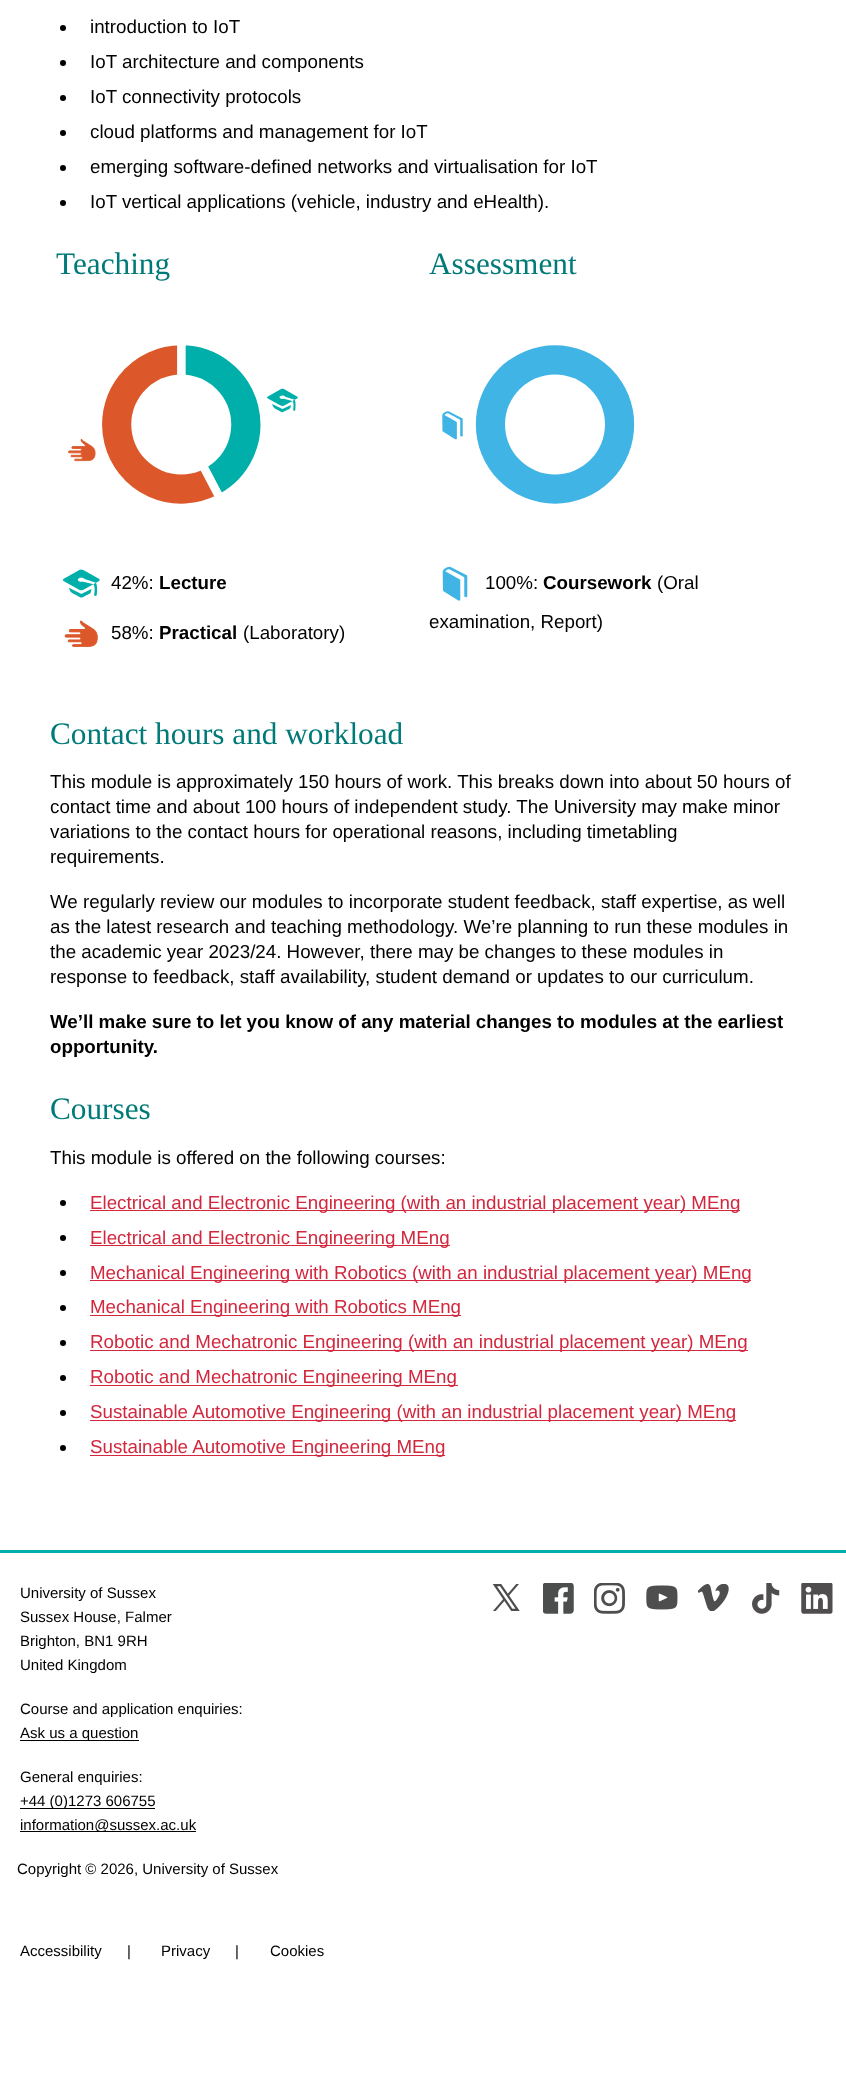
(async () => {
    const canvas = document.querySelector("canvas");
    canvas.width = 846;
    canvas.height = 2075;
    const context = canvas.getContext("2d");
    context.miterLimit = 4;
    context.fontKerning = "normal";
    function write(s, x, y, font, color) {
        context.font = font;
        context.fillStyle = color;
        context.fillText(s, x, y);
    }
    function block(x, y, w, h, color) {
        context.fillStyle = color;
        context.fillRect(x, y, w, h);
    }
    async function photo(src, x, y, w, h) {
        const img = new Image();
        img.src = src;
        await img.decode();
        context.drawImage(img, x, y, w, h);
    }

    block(0, 0, 846, 2075, "rgb(255, 255, 255)");
    context.fillStyle = "rgb(0, 0, 0)";
    context.beginPath();
    context.arc(63, 28, 3, 0, Math.PI * 2);
    context.fill();
    write("introduction to IoT", 90, 33, "18.75px Liberation Sans", "rgb(0, 0, 0)");
    context.beginPath();
    context.arc(63, 63, 3, 0, Math.PI * 2);
    context.fill();
    write("IoT architecture and components", 90, 68, "18.75px Liberation Sans", "rgb(0, 0, 0)");
    context.beginPath();
    context.arc(63, 98, 3, 0, Math.PI * 2);
    context.fill();
    write("IoT connectivity protocols", 90, 103, "18.75px Liberation Sans", "rgb(0, 0, 0)");
    context.beginPath();
    context.arc(63, 133, 3, 0, Math.PI * 2);
    context.fill();
    write("cloud platforms and management for IoT", 90, 138, "18.75px Liberation Sans", "rgb(0, 0, 0)");
    context.beginPath();
    context.arc(63, 168, 3, 0, Math.PI * 2);
    context.fill();
    write("emerging software-defined networks and virtualisation for IoT", 90, 173, "18.75px Liberation Sans", "rgb(0, 0, 0)");
    context.beginPath();
    context.arc(63, 203, 3, 0, Math.PI * 2);
    context.fill();
    write("IoT vertical applications (vehicle, industry and eHealth).", 90, 208, "18.75px Liberation Sans", "rgb(0, 0, 0)");
    write("Teaching", 56, 274, "31.25px Liberation Serif", "rgb(0, 122, 120)");
    await photo("media/1.png", 67, 345, 231, 159);
    await photo("media/2.png", 62, 569, 38, 29);
    write("42%:", 111, 589, "18.75px Liberation Sans", "rgb(0, 0, 0)");
    write("Lecture", 159, 589, "bold 18.75px Liberation Sans", "rgb(0, 0, 0)");
    await photo("media/3.png", 64, 620, 34, 27);
    write("58%:", 111, 639, "18.75px Liberation Sans", "rgb(0, 0, 0)");
    write("Practical", 159, 639, "bold 18.75px Liberation Sans", "rgb(0, 0, 0)");
    write("(Laboratory)", 243, 639, "18.75px Liberation Sans", "rgb(0, 0, 0)");
    write("Assessment", 429, 274, "31.25px Liberation Serif", "rgb(0, 122, 120)");
    await photo("media/4.png", 442, 345, 193, 159);
    await photo("media/5.png", 442, 566, 26, 35);
    write("100%:", 485, 589, "18.75px Liberation Sans", "rgb(0, 0, 0)");
    write("Coursework", 543, 589, "bold 18.75px Liberation Sans", "rgb(0, 0, 0)");
    write("(Oral", 657, 589, "18.75px Liberation Sans", "rgb(0, 0, 0)");
    write("examination, Report)", 429, 628, "18.75px Liberation Sans", "rgb(0, 0, 0)");
    write("Contact hours and workload", 50, 744, "31.25px Liberation Serif", "rgb(0, 122, 120)");
    write("This module is approximately 150 hours of work. This breaks down into about 50 hours of", 50, 788, "18.75px Liberation Sans", "rgb(0, 0, 0)");
    write("contact time and about 100 hours of independent study. The University may make minor", 50, 813, "18.75px Liberation Sans", "rgb(0, 0, 0)");
    write("variations to the contact hours for operational reasons, including timetabling", 50, 838, "18.75px Liberation Sans", "rgb(0, 0, 0)");
    write("requirements.", 50, 863, "18.75px Liberation Sans", "rgb(0, 0, 0)");
    write("We regularly review our modules to incorporate student feedback, staff expertise, as well", 50, 908, "18.75px Liberation Sans", "rgb(0, 0, 0)");
    write("as the latest research and teaching methodology. We’re planning to run these modules in", 50, 933, "18.75px Liberation Sans", "rgb(0, 0, 0)");
    write("the academic year 2023/24. However, there may be changes to these modules in", 50, 958, "18.75px Liberation Sans", "rgb(0, 0, 0)");
    write("response to feedback, staff availability, student demand or updates to our curriculum.", 50, 983, "18.75px Liberation Sans", "rgb(0, 0, 0)");
    write("We’ll make sure to let you know of any material changes to modules at the earliest", 50, 1028, "bold 18.75px Liberation Sans", "rgb(0, 0, 0)");
    write("opportunity.", 50, 1053, "bold 18.75px Liberation Sans", "rgb(0, 0, 0)");
    write("Courses", 50, 1119, "31.25px Liberation Serif", "rgb(0, 122, 120)");
    write("This module is offered on the following courses:", 50, 1164, "18.75px Liberation Sans", "rgb(0, 0, 0)");
    context.beginPath();
    context.arc(63, 1203, 3, 0, Math.PI * 2);
    context.fill();
    block(90, 1210, 650, 1, "rgb(211, 39, 62)");
    write("Electrical and Electronic Engineering (with an industrial placement year) MEng", 90, 1209, "18.75px Liberation Sans", "rgb(211, 39, 62)");
    context.fillStyle = "rgb(0, 0, 0)";
    context.beginPath();
    context.arc(63, 1238, 3, 0, Math.PI * 2);
    context.fill();
    block(90, 1245, 360, 1, "rgb(211, 39, 62)");
    write("Electrical and Electronic Engineering MEng", 90, 1244, "18.75px Liberation Sans", "rgb(211, 39, 62)");
    context.fillStyle = "rgb(0, 0, 0)";
    context.beginPath();
    context.arc(63, 1273, 3, 0, Math.PI * 2);
    context.fill();
    block(90, 1280, 661, 1, "rgb(211, 39, 62)");
    write("Mechanical Engineering with Robotics (with an industrial placement year) MEng", 90, 1279, "18.75px Liberation Sans", "rgb(211, 39, 62)");
    context.fillStyle = "rgb(0, 0, 0)";
    context.beginPath();
    context.arc(63, 1308, 3, 0, Math.PI * 2);
    context.fill();
    block(90, 1315, 371, 1, "rgb(211, 39, 62)");
    write("Mechanical Engineering with Robotics MEng", 90, 1313, "18.75px Liberation Sans", "rgb(211, 39, 62)");
    context.fillStyle = "rgb(0, 0, 0)";
    context.beginPath();
    context.arc(63, 1343, 3, 0, Math.PI * 2);
    context.fill();
    block(90, 1350, 658, 1, "rgb(211, 39, 62)");
    write("Robotic and Mechatronic Engineering (with an industrial placement year) MEng", 90, 1348, "18.75px Liberation Sans", "rgb(211, 39, 62)");
    context.fillStyle = "rgb(0, 0, 0)";
    context.beginPath();
    context.arc(63, 1378, 3, 0, Math.PI * 2);
    context.fill();
    block(90, 1385, 368, 1, "rgb(211, 39, 62)");
    write("Robotic and Mechatronic Engineering MEng", 90, 1383, "18.75px Liberation Sans", "rgb(211, 39, 62)");
    context.fillStyle = "rgb(0, 0, 0)";
    context.beginPath();
    context.arc(63, 1413, 3, 0, Math.PI * 2);
    context.fill();
    block(90, 1420, 646, 1, "rgb(211, 39, 62)");
    write("Sustainable Automotive Engineering (with an industrial placement year) MEng", 90, 1418, "18.75px Liberation Sans", "rgb(211, 39, 62)");
    context.fillStyle = "rgb(0, 0, 0)";
    context.beginPath();
    context.arc(63, 1448, 3, 0, Math.PI * 2);
    context.fill();
    block(90, 1455, 355, 1, "rgb(211, 39, 62)");
    write("Sustainable Automotive Engineering MEng", 90, 1453, "18.75px Liberation Sans", "rgb(211, 39, 62)");
    block(0, 1550, 846, 3, "rgb(0, 175, 170)");
    write("University of Sussex", 20, 1598, "15px Liberation Sans", "rgb(0, 0, 0)");
    write("Sussex House, Falmer", 20, 1622, "15px Liberation Sans", "rgb(0, 0, 0)");
    write("Brighton, BN1 9RH", 20, 1646, "15px Liberation Sans", "rgb(0, 0, 0)");
    write("United Kingdom", 20, 1670, "15px Liberation Sans", "rgb(0, 0, 0)");
    write("Course and application enquiries:", 20, 1714, "15px Liberation Sans", "rgb(0, 0, 0)");
    block(20, 1740, 119, 1, "rgb(0, 0, 0)");
    write("Ask us a question", 20, 1738, "15px Liberation Sans", "rgb(0, 0, 0)");
    write("General enquiries:", 20, 1782, "15px Liberation Sans", "rgb(0, 0, 0)");
    block(20, 1808, 135, 1, "rgb(0, 0, 0)");
    write("+44 (0)1273 606755", 20, 1806, "15px Liberation Sans", "rgb(0, 0, 0)");
    block(20, 1831, 176, 1, "rgb(0, 0, 0)");
    write("information@sussex.ac.uk", 20, 1830, "15px Liberation Sans", "rgb(0, 0, 0)");
    write("Copyright © 2026, University of Sussex", 17, 1874, "15px Liberation Sans", "rgb(0, 0, 0)");
    write("Accessibility", 20, 1956, "15px Liberation Sans", "rgb(0, 0, 0)");
    write("|", 127, 1956, "15px Liberation Sans", "rgb(0, 0, 0)");
    write("Privacy", 161, 1956, "15px Liberation Sans", "rgb(0, 0, 0)");
    write("|", 235, 1956, "15px Liberation Sans", "rgb(0, 0, 0)");
    write("Cookies", 270, 1956, "15px Liberation Sans", "rgb(0, 0, 0)");
    await photo("media/6.png", 492, 1584, 28, 27);
    await photo("media/7.png", 543, 1583, 31, 31);
    await photo("media/8.png", 594, 1583, 31, 31);
    await photo("media/9.png", 646, 1585, 32, 25);
    await photo("media/10.png", 698, 1584, 31, 27);
    await photo("media/11.png", 752, 1583, 28, 31);
    await photo("media/12.png", 801, 1583, 32, 31);
})();
